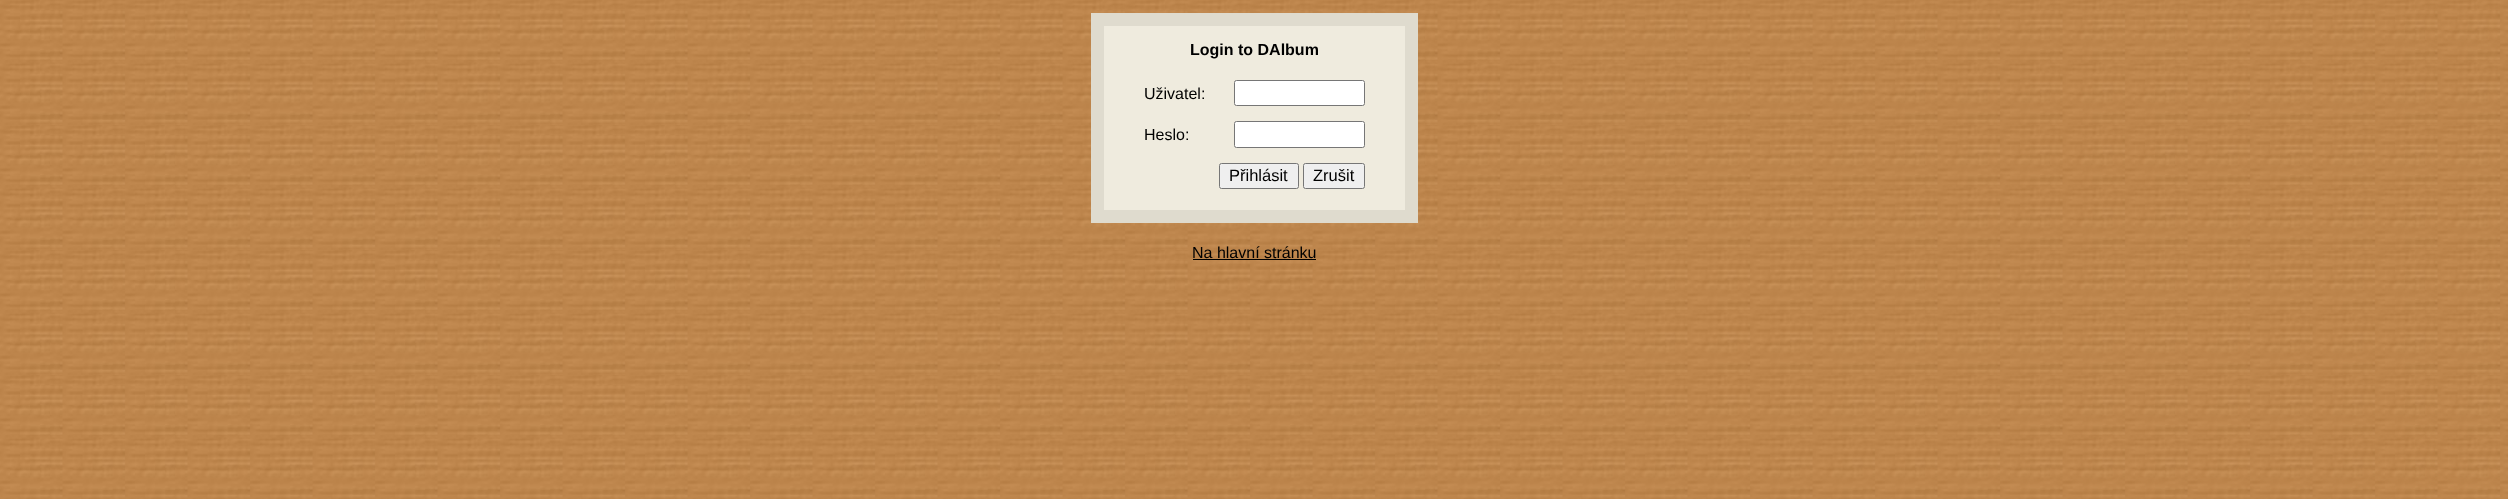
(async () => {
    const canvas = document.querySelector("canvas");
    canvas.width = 2508;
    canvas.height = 499;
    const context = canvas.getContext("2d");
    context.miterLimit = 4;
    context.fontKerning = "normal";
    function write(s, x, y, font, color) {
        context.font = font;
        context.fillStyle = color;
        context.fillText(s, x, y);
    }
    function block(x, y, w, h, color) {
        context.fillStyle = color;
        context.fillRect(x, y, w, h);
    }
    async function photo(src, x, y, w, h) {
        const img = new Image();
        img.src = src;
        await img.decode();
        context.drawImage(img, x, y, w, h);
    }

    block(0, 0, 2508, 499, "rgb(255, 255, 255)");
    await photo("media/1.png", 0, 0, 2508, 13);
    await photo("media/2.png", 0, 13, 2508, 486);
    context.fillStyle = "rgb(239, 235, 222)";
    context.beginPath();
    context.rect(1097.5, 19.5, 314, 197);
    context.fill();
    context.strokeStyle = "rgb(223, 219, 206)";
    context.lineWidth = 13;
    context.stroke();
    write("Login to DAlbum", 1190, 55, "bold 16px Liberation Sans", "rgb(0, 0, 0)");
    write("Uživatel:", 1144, 99, "16px Liberation Sans", "rgb(0, 0, 0)");
    context.fillStyle = "rgb(255, 255, 255)";
    context.beginPath();
    context.roundRect(1234.5, 80.5, 130, 25, 2);
    context.fill();
    context.strokeStyle = "rgb(118, 118, 118)";
    context.lineWidth = 1;
    context.stroke();
    write("Heslo:", 1144, 140, "16px Liberation Sans", "rgb(0, 0, 0)");
    context.fillStyle = "rgb(255, 255, 255)";
    context.beginPath();
    context.roundRect(1234.5, 121.5, 130, 26, 2);
    context.fill();
    context.stroke();
    context.fillStyle = "rgb(239, 239, 239)";
    context.beginPath();
    context.roundRect(1219.5, 163.5, 79, 25, 2);
    context.fill();
    context.stroke();
    write("Přihlásit", 1229, 181, "16.5px Liberation Sans", "rgb(0, 0, 0)");
    context.fillStyle = "rgb(239, 239, 239)";
    context.beginPath();
    context.roundRect(1303.5, 163.5, 61, 25, 2);
    context.fill();
    context.stroke();
    write("Zrušit", 1313, 181, "16.5px Liberation Sans", "rgb(0, 0, 0)");
    write("Na hlavní stránku", 1192, 258, "16px Liberation Sans", "rgb(0, 0, 0)");
    block(1193, 259, 123, 1, "rgb(0, 0, 0)");
})();
